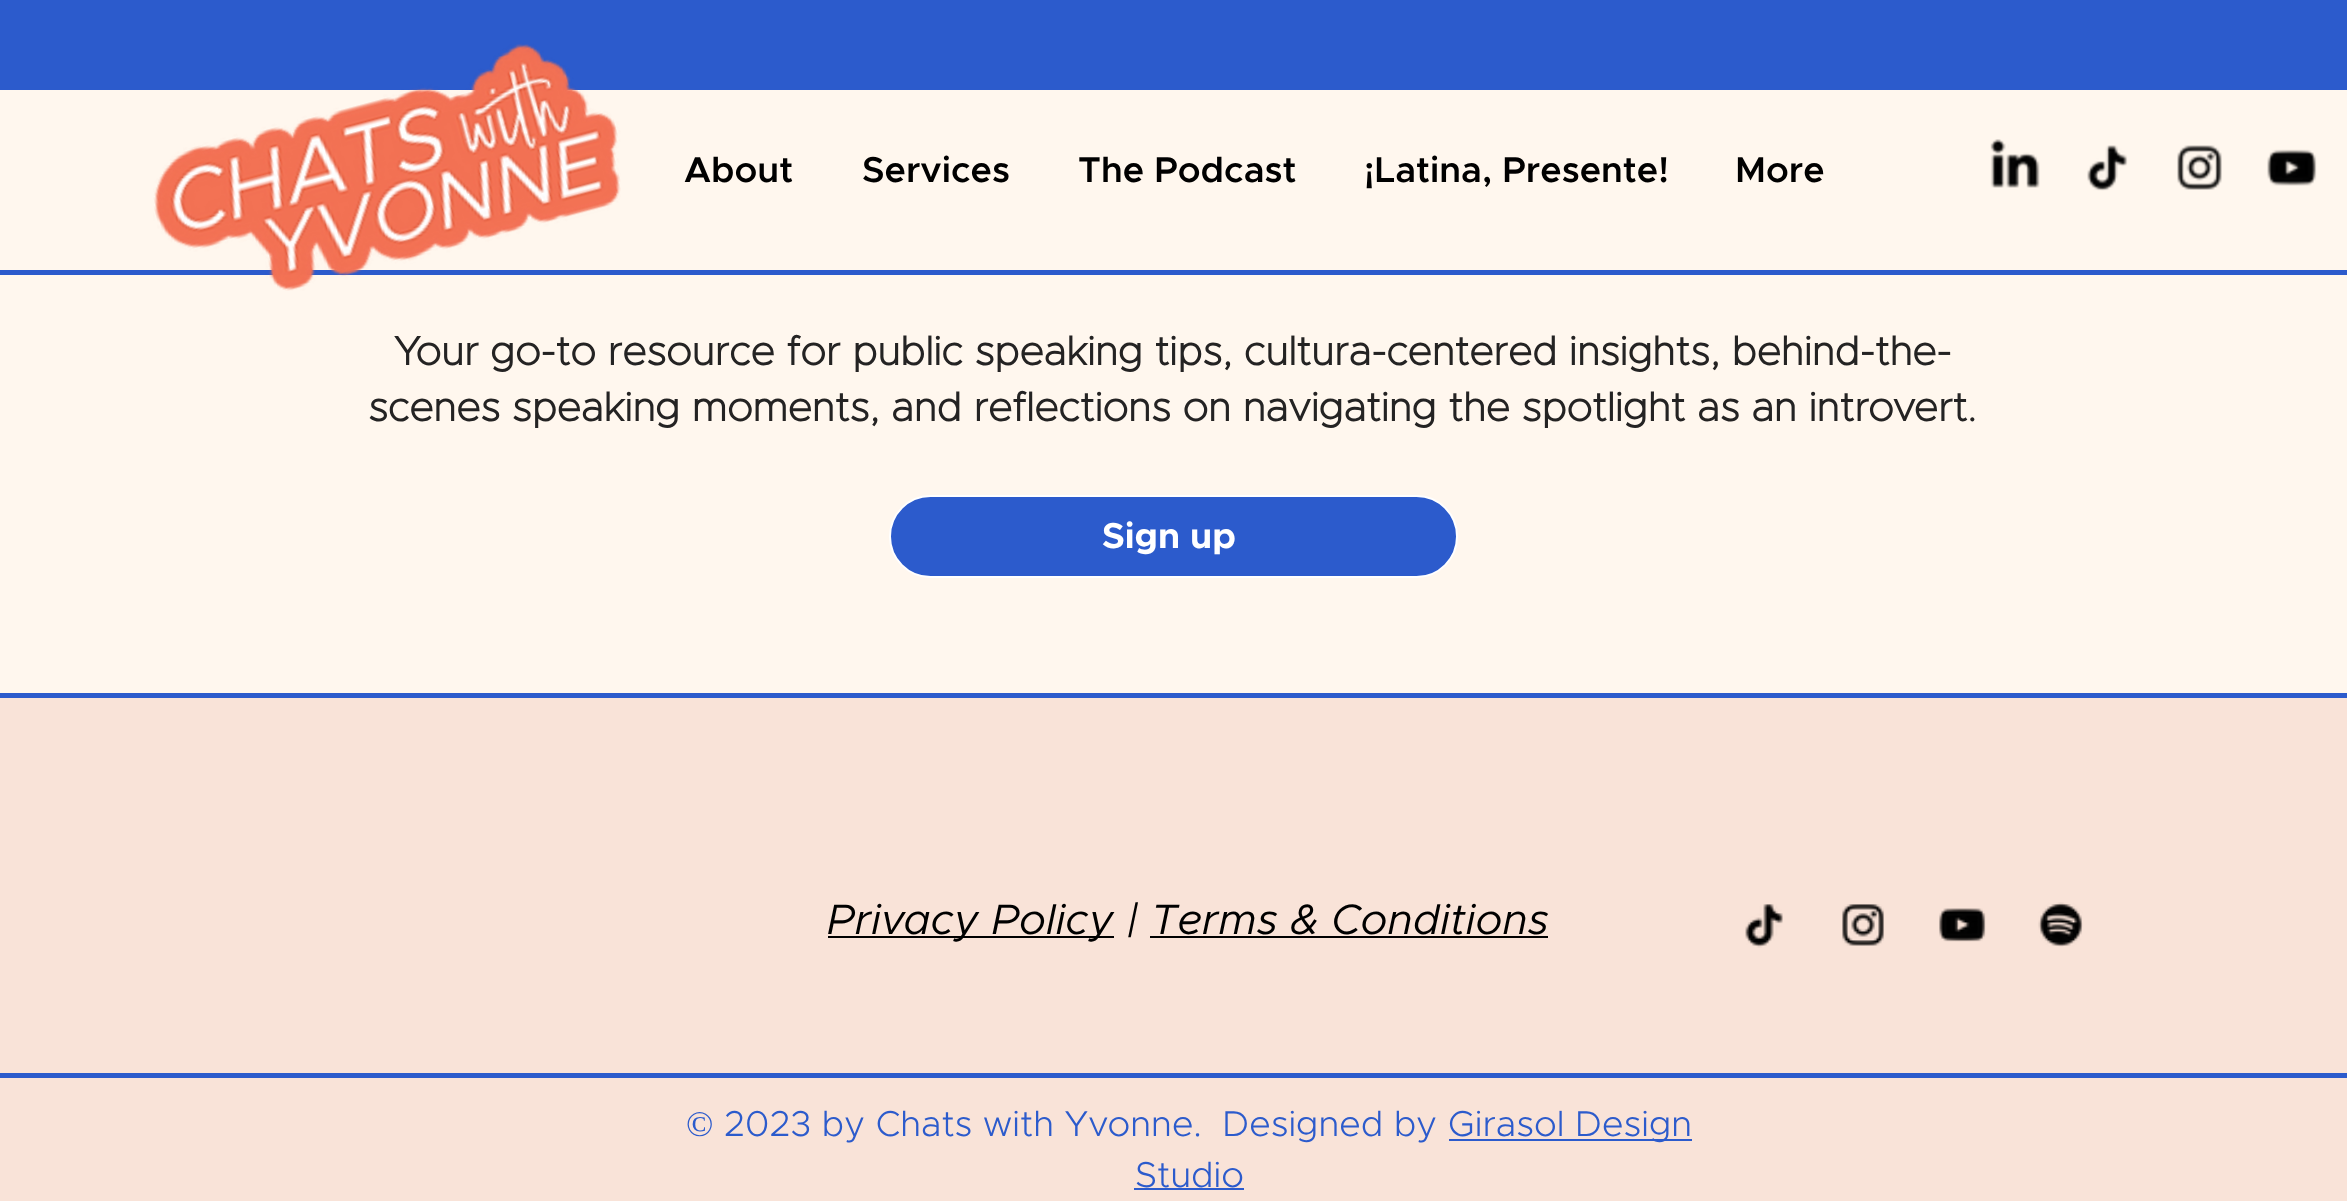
(async () => {
    const canvas = document.querySelector("canvas");
    canvas.width = 2347;
    canvas.height = 1201;
    const context = canvas.getContext("2d");
    context.miterLimit = 4;
    context.fontKerning = "normal";
    function write(s, x, y, font, color) {
        context.font = font;
        context.fillStyle = color;
        context.fillText(s, x, y);
    }
    function block(x, y, w, h, color) {
        context.fillStyle = color;
        context.fillRect(x, y, w, h);
    }
    async function photo(src, x, y, w, h) {
        const img = new Image();
        img.src = src;
        await img.decode();
        context.drawImage(img, x, y, w, h);
    }

    block(0, 0, 2347, 1201, "rgb(249, 227, 216)");
    block(0, 270, 2347, 5, "rgb(44, 91, 204)");
    block(0, 90, 2347, 180, "rgb(255, 247, 238)");
    block(0, 0, 2347, 90, "rgb(44, 91, 204)");
    block(0, 275, 2347, 418, "rgb(255, 247, 238)");
    await photo("media/1.png", 153, 43, 468, 248);
    write("About", 684, 182, "600 36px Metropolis", "rgb(0, 0, 0)");
    write("Services", 862, 182, "600 36px Metropolis", "rgb(0, 0, 0)");
    write("The Podcast", 1078, 182, "600 36px Metropolis", "rgb(0, 0, 0)");
    write("¡Latina, Presente!", 1364, 182, "600 36px Metropolis", "rgb(0, 0, 0)");
    write("More", 1735, 182, "600 36px Metropolis", "rgb(0, 0, 0)");
    await photo("media/2.png", 1990, 139, 50, 49);
    await photo("media/3.png", 2087, 145, 41, 46);
    await photo("media/4.png", 2177, 145, 45, 45);
    await photo("media/5.png", 2267, 149, 50, 37);
    write("Your go-to resource for public speaking tips, cultura-centered insights, behind-the-", 394, 365, "bold 40.5px Metropolis", "rgb(36, 35, 35)");
    write("scenes speaking moments, and reflections on navigating the spotlight as an introvert.", 368, 421, "bold 40.5px Metropolis", "rgb(36, 35, 35)");
    context.fillStyle = "rgb(44, 91, 204)";
    context.beginPath();
    context.roundRect(890, 496, 567, 81, 40.5);
    context.fill();
    context.strokeStyle = "rgb(255, 255, 255)";
    context.lineWidth = 2;
    context.stroke();
    write("Sign up", 1102, 548, "bold 36px 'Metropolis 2'", "rgb(255, 255, 255)");
    block(0, 693, 2347, 5, "rgb(44, 91, 204)");
    block(828, 936, 286, 2, "rgb(0, 0, 0)");
    write("Privacy Policy | Terms & Conditions", 827, 934, "italic 42.75px Metropolis", "rgb(0, 0, 0)");
    block(1150, 936, 398, 2, "rgb(0, 0, 0)");
    await photo("media/6.png", 1745, 904, 38, 44);
    await photo("media/7.png", 1842, 904, 42, 42);
    await photo("media/8.png", 1939, 908, 47, 34);
    await photo("media/9.png", 2038, 902, 45, 45);
    block(0, 1073, 2347, 5, "rgb(44, 91, 204)");
    write("©", 686, 1136, "36px Liberation Serif", "rgb(44, 91, 204)");
    write("2023 by Chats with Yvonne.", 724, 1136, "300 36px Metropolis", "rgb(44, 91, 204)");
    write("Designed by", 1222, 1136, "300 36px Metropolis", "rgb(44, 91, 204)");
    block(1449, 1139, 243, 2, "rgb(44, 91, 204)");
    write("Girasol Design", 1448, 1136, "300 36px Metropolis", "rgb(44, 91, 204)");
    write("Studio", 1135, 1187, "300 36px Metropolis", "rgb(44, 91, 204)");
    block(1134, 1188, 110, 2, "rgb(44, 91, 204)");
})();
